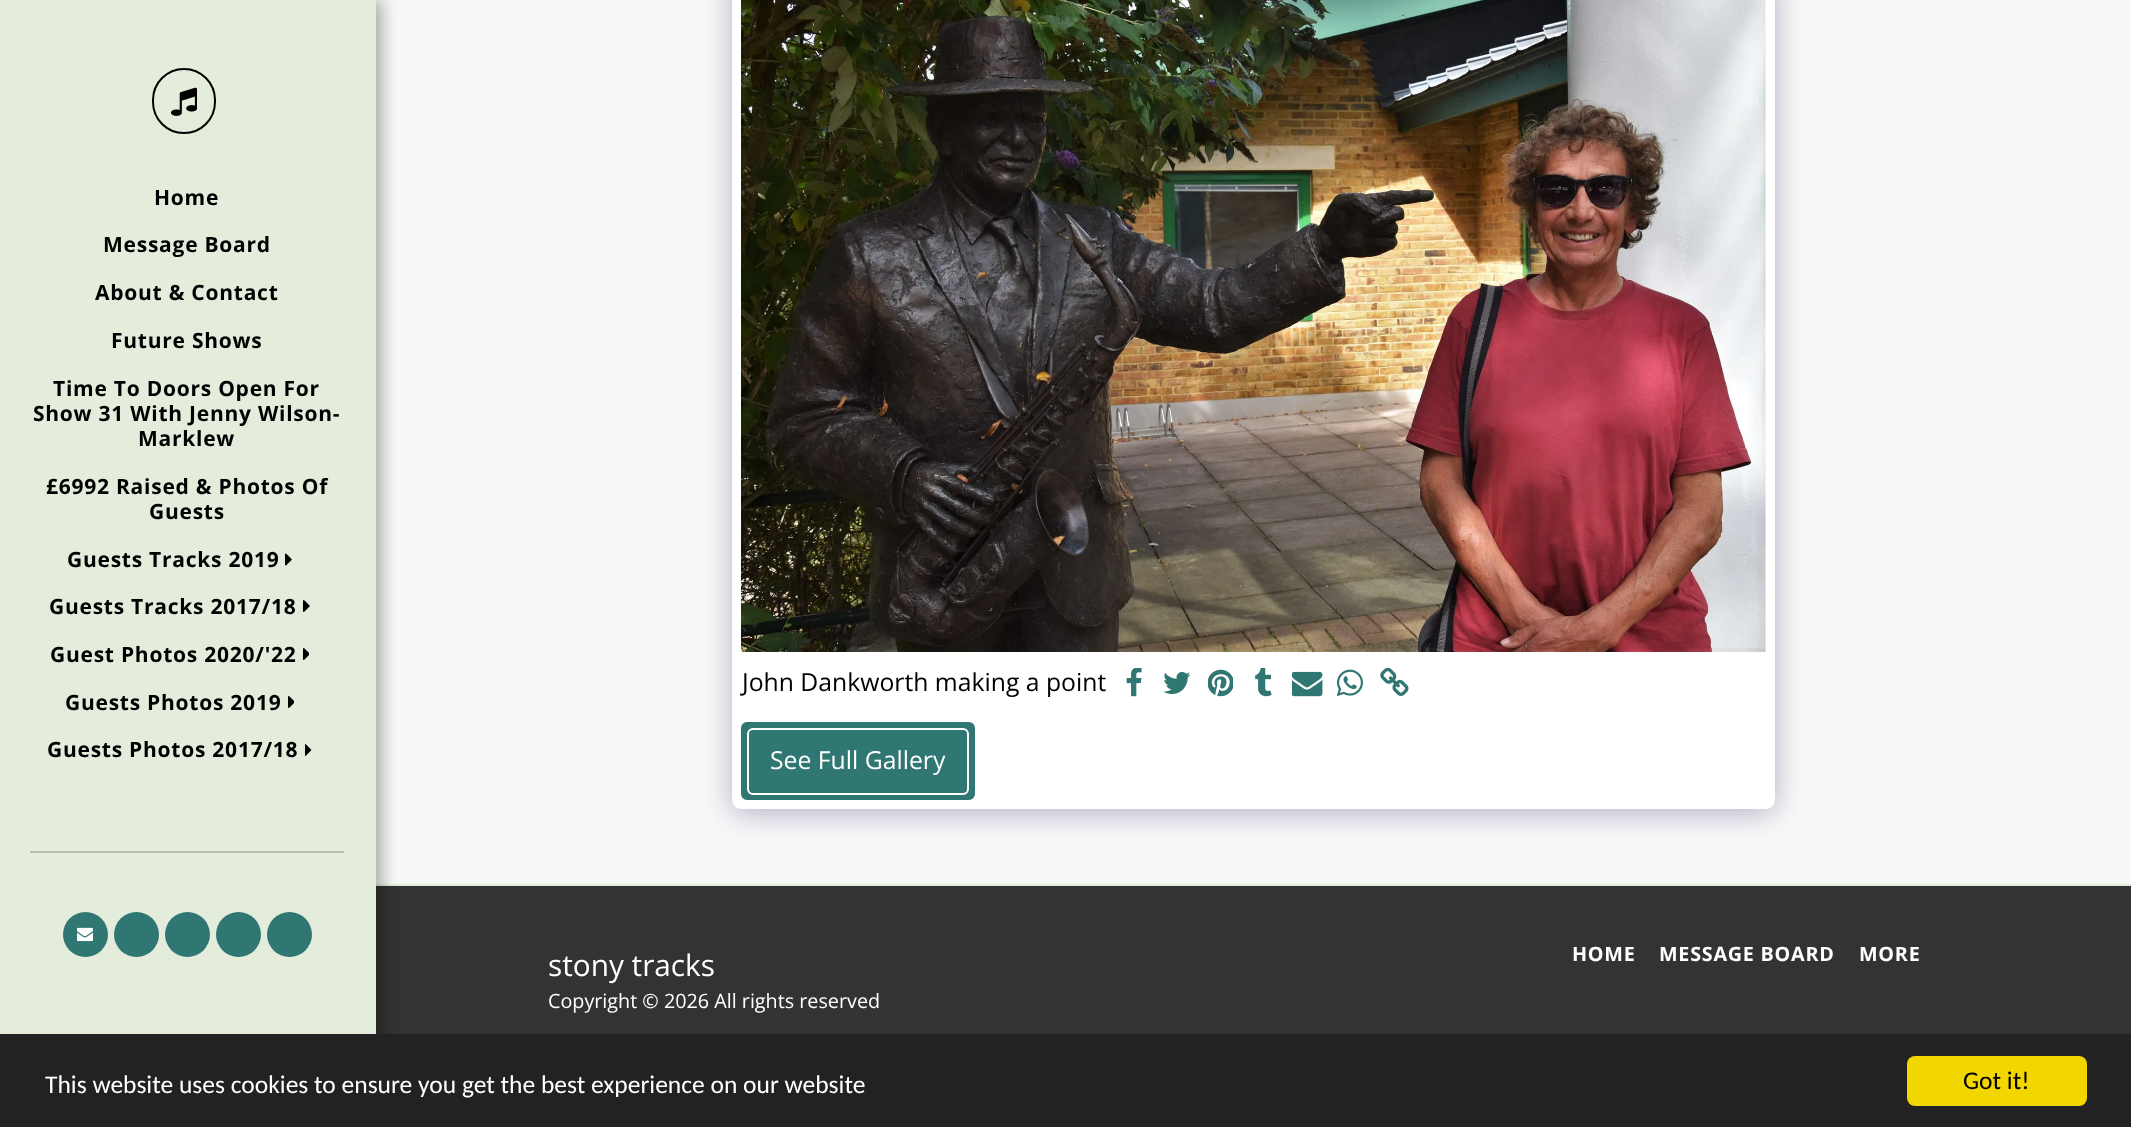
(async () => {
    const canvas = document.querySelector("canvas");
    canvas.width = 2131;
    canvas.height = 1127;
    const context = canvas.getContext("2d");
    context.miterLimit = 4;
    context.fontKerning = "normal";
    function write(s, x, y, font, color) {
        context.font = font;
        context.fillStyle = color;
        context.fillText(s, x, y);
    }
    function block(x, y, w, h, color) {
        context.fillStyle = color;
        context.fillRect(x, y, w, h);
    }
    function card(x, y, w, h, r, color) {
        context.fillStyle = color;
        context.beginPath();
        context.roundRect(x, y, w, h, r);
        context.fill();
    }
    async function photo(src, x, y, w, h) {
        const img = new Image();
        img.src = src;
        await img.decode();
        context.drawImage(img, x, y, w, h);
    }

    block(0, 0, 2131, 1127, "rgb(247, 249, 248)");
    block(376, 886, 1755, 148, "rgb(51, 51, 51)");
    block(375, 884, 1756, 2, "rgb(228, 237, 219)");
    context.fillStyle = "rgba(0, 0, 0, 0.35)";
    context.filter = "blur(9px)";
    context.beginPath();
    context.rect(0, -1, 381, 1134);
    context.fill();
    context.filter = "none";
    block(0, 0, 376, 1034, "rgb(228, 237, 219)");
    context.beginPath();
    context.roundRect(153, 69, 62, 64, 31);
    context.strokeStyle = "rgb(0, 0, 0)";
    context.lineWidth = 2;
    context.stroke();
    await photo("media/1.png", 171, 87, 26, 29);
    context.letterSpacing = "0.75px";
    write("Home", 154, 205, "bold 21px Open Sans", "rgb(0, 0, 0)");
    write("Message Board", 103, 252, "bold 21px Open Sans", "rgb(0, 0, 0)");
    write("About & Contact", 95, 300, "bold 21px Open Sans", "rgb(0, 0, 0)");
    write("Future Shows", 111, 348, "bold 21px Open Sans", "rgb(0, 0, 0)");
    write("Time To Doors Open For", 53, 396, "bold 21px Open Sans", "rgb(0, 0, 0)");
    write("Show 31 With Jenny Wilson-", 33, 421, "bold 21px Open Sans", "rgb(0, 0, 0)");
    write("Marklew", 138, 446, "bold 21px Open Sans", "rgb(0, 0, 0)");
    write("£6992 Raised & Photos Of", 46, 494, "bold 21px Open Sans", "rgb(0, 0, 0)");
    write("Guests", 149, 519, "bold 21px Open Sans", "rgb(0, 0, 0)");
    write("Guests Tracks 2019", 67, 567, "bold 21px Open Sans", "rgb(0, 0, 0)");
    await photo("media/2.png", 285, 553, 7, 13);
    write("Guests Tracks 2017/18", 49, 614, "bold 21px Open Sans", "rgb(0, 0, 0)");
    await photo("media/3.png", 303, 600, 7, 12);
    write("Guest Photos 2020/'22", 50, 662, "bold 21px Open Sans", "rgb(0, 0, 0)");
    await photo("media/4.png", 303, 648, 6, 12);
    write("Guests Photos 2019", 65, 710, "bold 21px Open Sans", "rgb(0, 0, 0)");
    await photo("media/4.png", 288, 696, 6, 12);
    write("Guests Photos 2017/18", 47, 757, "bold 21px Open Sans", "rgb(0, 0, 0)");
    await photo("media/5.png", 305, 744, 7, 12);
    block(30, 851, 314, 2, "rgb(182, 190, 175)");
    context.fillStyle = "rgb(48, 118, 114)";
    context.beginPath();
    context.arc(85.5, 934.5, 22.5, 0, Math.PI * 2);
    context.fill();
    await photo("media/6.png", 77, 927, 16, 15);
    context.beginPath();
    context.arc(136.5, 934.5, 22.5, 0, Math.PI * 2);
    context.fill();
    context.beginPath();
    context.arc(187.5, 934.5, 22.5, 0, Math.PI * 2);
    context.fill();
    context.beginPath();
    context.arc(238.5, 934.5, 22.5, 0, Math.PI * 2);
    context.fill();
    context.beginPath();
    context.arc(289.5, 934.5, 22.5, 0, Math.PI * 2);
    context.fill();
    context.fillStyle = "rgba(77, 63, 122, 0.4)";
    context.filter = "blur(15px)";
    context.beginPath();
    context.roundRect(732, -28, 1043, 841, 9);
    context.fill();
    context.filter = "none";
    card(732, -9, 1043, 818, 9, "rgb(255, 255, 255)");
    await photo("media/7.png", 741, 0, 1025, 652);
    context.letterSpacing = "0px";
    write("John Dankworth making a point", 742, 691, "24.75px Open Sans", "rgb(0, 0, 0)");
    await photo("media/8.png", 1126, 668, 16, 29);
    await photo("media/9.png", 1163, 671, 28, 23);
    await photo("media/10.png", 1208, 669, 25, 28);
    await photo("media/11.png", 1255, 668, 17, 29);
    await photo("media/12.png", 1292, 671, 31, 26);
    await photo("media/13.png", 1337, 669, 26, 28);
    await photo("media/14.png", 1380, 668, 29, 28);
    context.fillStyle = "rgb(48, 118, 114)";
    context.beginPath();
    context.roundRect(742, 723, 232, 76, 5);
    context.fill();
    context.strokeStyle = "rgb(48, 118, 114)";
    context.stroke();
    context.beginPath();
    context.roundRect(748, 729, 220, 65, 5);
    context.strokeStyle = "rgb(255, 255, 255)";
    context.stroke();
    write("See Full Gallery", 770, 769, "24.75px Open Sans", "rgb(255, 255, 255)");
    write("stony tracks", 548, 976, "29.75px Open Sans", "rgb(255, 255, 255)");
    write("Copyright © 2026 All rights reserved", 548, 1008, "19.75px Open Sans", "rgb(255, 255, 255)");
    context.letterSpacing = "0.75px";
    write("HOME", 1572, 961, "bold 19.75px Open Sans", "rgb(255, 255, 255)");
    write("MESSAGE BOARD", 1659, 961, "bold 19.75px Open Sans", "rgb(255, 255, 255)");
    write("MORE", 1859, 961, "bold 19.75px Open Sans", "rgb(255, 255, 255)");
    block(0, 1034, 2131, 93, "rgb(34, 34, 34)");
    context.letterSpacing = "0px";
    write("This website uses cookies to ensure you get the best experience on our website", 45, 1093, "25.5px Carlito", "rgb(255, 255, 255)");
    card(1907, 1056, 180, 50, 8, "rgb(241, 214, 0)");
    write("Got it!", 1963, 1089, "25.5px Carlito", "rgb(0, 0, 0)");
})();
